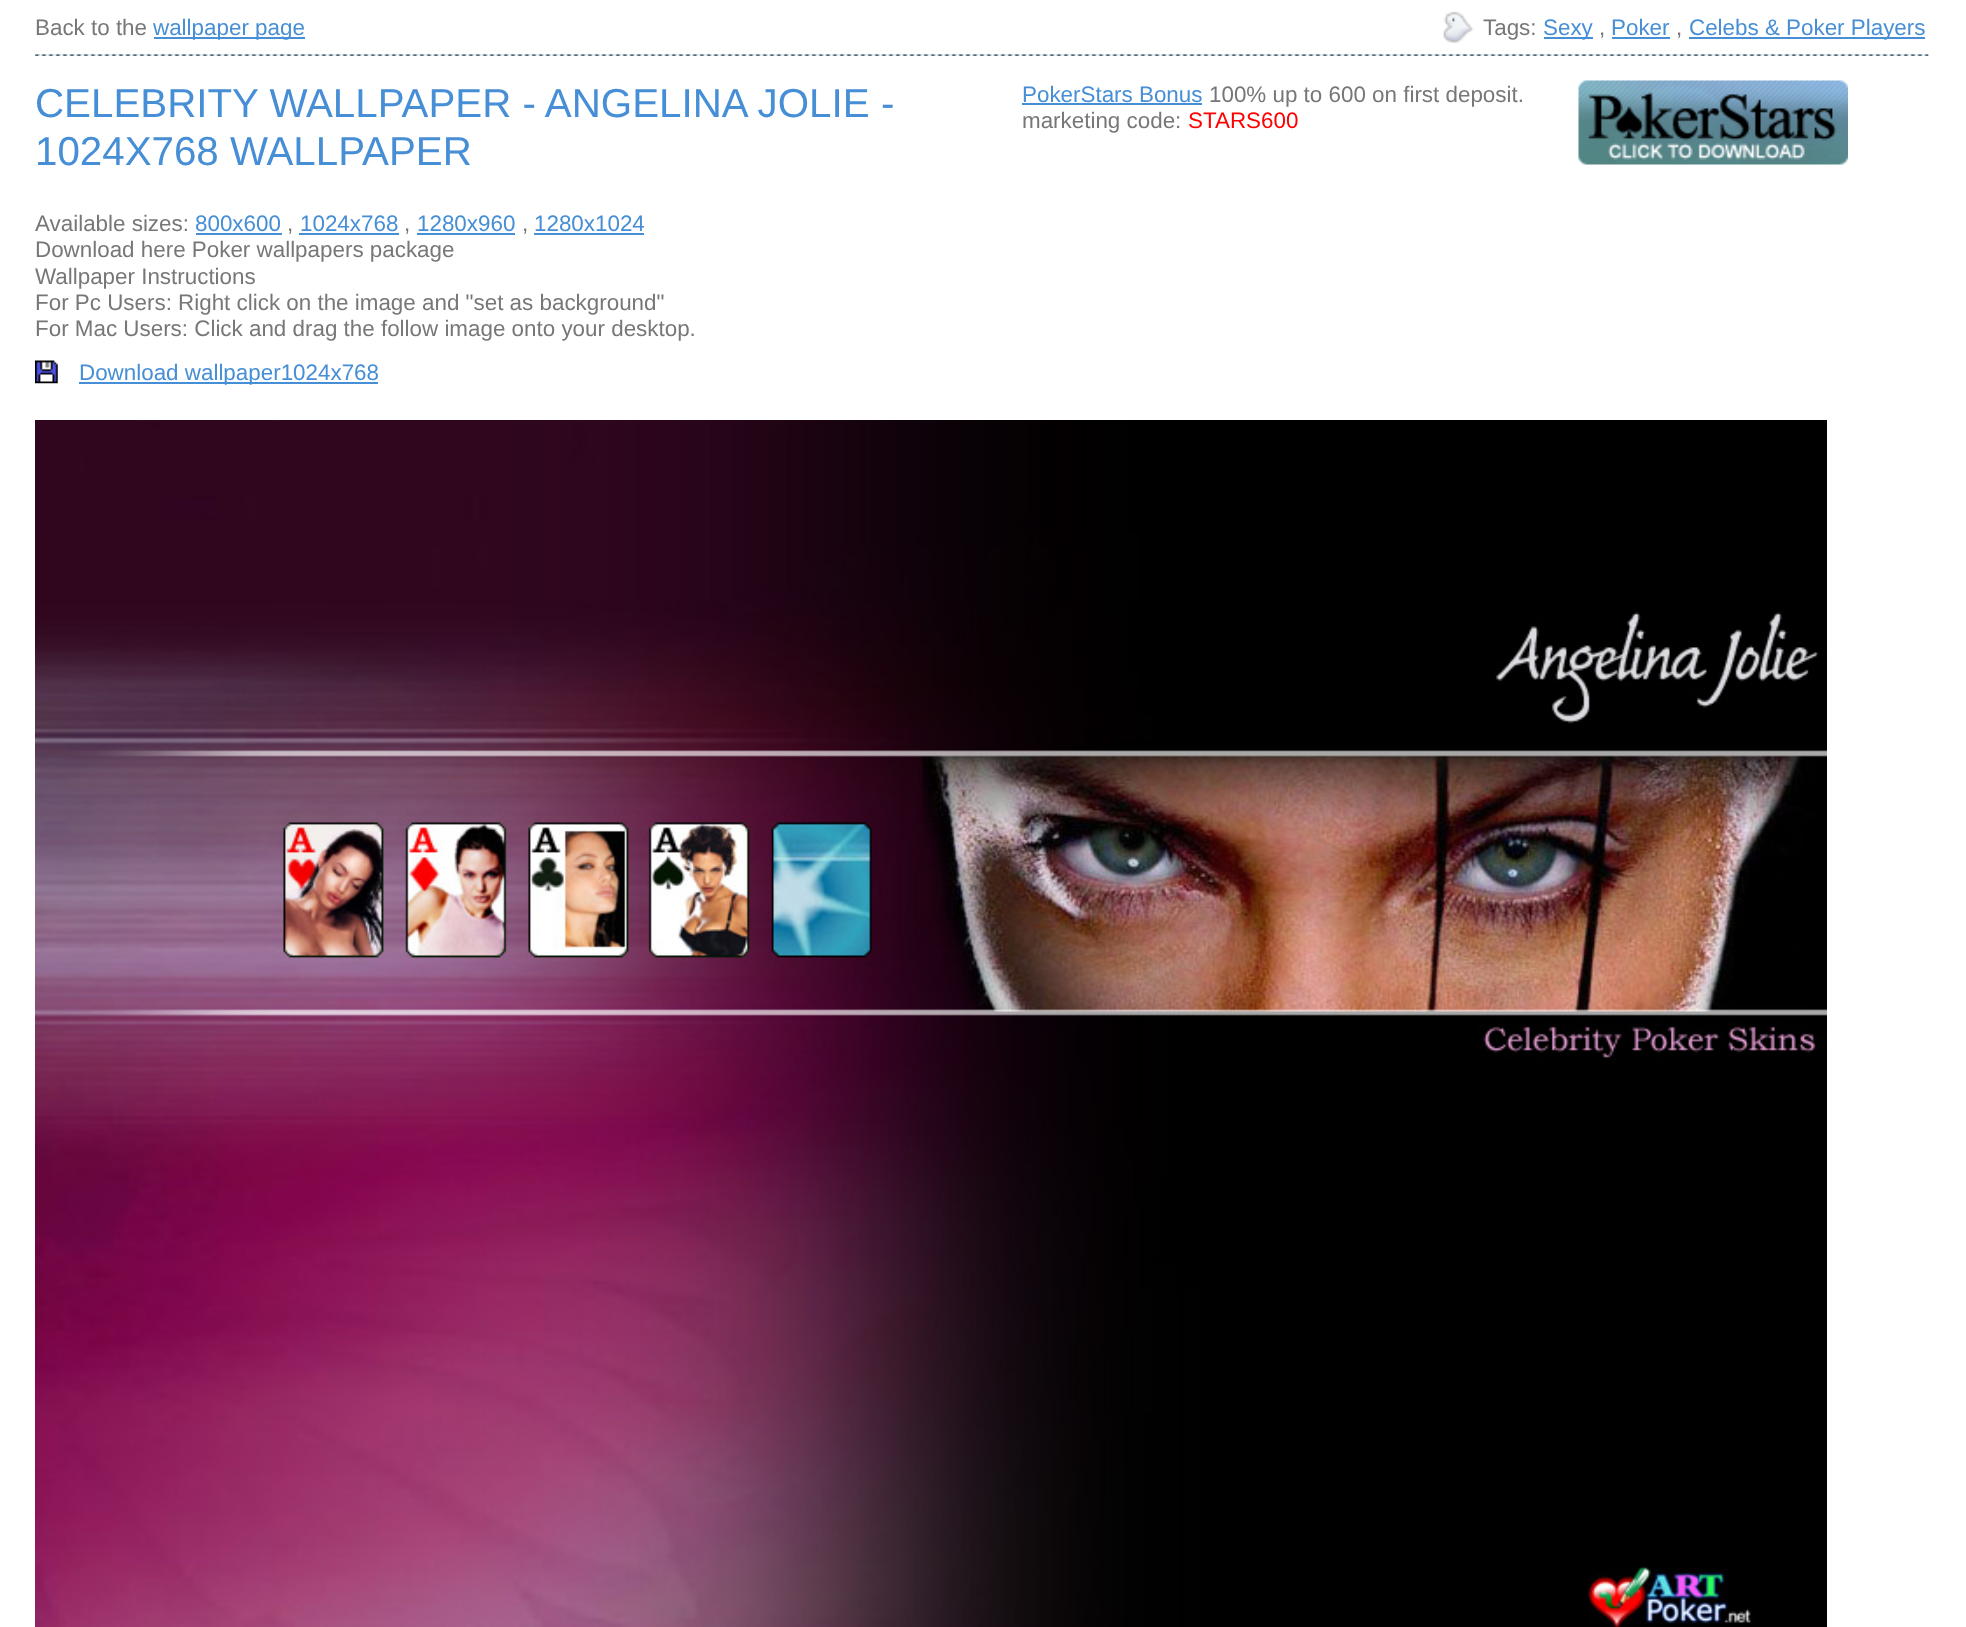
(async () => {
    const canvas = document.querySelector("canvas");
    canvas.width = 1966;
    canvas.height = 1627;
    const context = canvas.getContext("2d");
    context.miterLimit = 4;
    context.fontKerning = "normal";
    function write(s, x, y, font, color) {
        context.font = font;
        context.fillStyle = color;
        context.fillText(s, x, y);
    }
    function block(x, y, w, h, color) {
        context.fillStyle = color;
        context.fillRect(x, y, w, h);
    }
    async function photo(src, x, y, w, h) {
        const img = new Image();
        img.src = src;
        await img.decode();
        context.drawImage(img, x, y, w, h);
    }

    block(0, 0, 1966, 1627, "rgb(255, 255, 255)");
    write("Back to the", 35, 35, "22.4px Liberation Sans", "rgb(119, 119, 119)");
    block(154, 37, 151, 2, "rgb(70, 142, 213)");
    write("wallpaper page", 153, 35, "22.4px Liberation Sans", "rgb(70, 142, 213)");
    await photo("media/1.png", 1443, 11, 31, 33);
    write("Tags:", 1483, 35, "22.4px Liberation Sans", "rgb(119, 119, 119)");
    block(1544, 37, 49, 2, "rgb(70, 142, 213)");
    write("Sexy", 1543, 35, "22.4px Liberation Sans", "rgb(70, 142, 213)");
    write(",", 1599, 35, "22.4px Liberation Sans", "rgb(119, 119, 119)");
    block(1612, 37, 58, 2, "rgb(70, 142, 213)");
    write("Poker", 1611, 35, "22.4px Liberation Sans", "rgb(70, 142, 213)");
    write(",", 1676, 35, "22.4px Liberation Sans", "rgb(119, 119, 119)");
    block(1689, 37, 236, 2, "rgb(70, 142, 213)");
    write("Celebs & Poker Players", 1689, 35, "22.4px Liberation Sans", "rgb(70, 142, 213)");
    await photo("media/2.png", 35, 54, 1894, 2);
    write("CELEBRITY WALLPAPER - ANGELINA JOLIE", 35, 117, "40.3px Liberation Sans", "rgb(70, 142, 213)");
    write("-", 881, 117, "40.3px Liberation Sans", "rgb(70, 142, 213)");
    write("1024X768 WALLPAPER", 35, 165, "40.3px Liberation Sans", "rgb(70, 142, 213)");
    write("Available sizes:", 35, 231, "22.4px Liberation Sans", "rgb(119, 119, 119)");
    write("800x600", 195, 231, "22.4px Liberation Sans", "rgb(70, 142, 213)");
    write(",", 287, 231, "22.4px Liberation Sans", "rgb(119, 119, 119)");
    block(196, 233, 86, 2, "rgb(70, 142, 213)");
    block(299, 233, 100, 2, "rgb(70, 142, 213)");
    write("1024x768", 300, 231, "22.4px Liberation Sans", "rgb(70, 142, 213)");
    write(",", 404, 231, "22.4px Liberation Sans", "rgb(119, 119, 119)");
    block(417, 233, 98, 2, "rgb(70, 142, 213)");
    write("1280x960", 417, 231, "22.4px Liberation Sans", "rgb(70, 142, 213)");
    write(",", 522, 231, "22.4px Liberation Sans", "rgb(119, 119, 119)");
    block(534, 233, 110, 2, "rgb(70, 142, 213)");
    write("1280x1024", 534, 231, "22.4px Liberation Sans", "rgb(70, 142, 213)");
    write("Download here Poker wallpapers package", 35, 257, "22.4px Liberation Sans", "rgb(119, 119, 119)");
    write("Wallpaper Instructions", 35, 284, "22.4px Liberation Sans", "rgb(119, 119, 119)");
    write("For Pc Users: Right click on the image and \"set as background\"", 35, 310, "22.4px Liberation Sans", "rgb(119, 119, 119)");
    write("For Mac Users: Click and drag the follow image onto your desktop.", 35, 336, "22.4px Liberation Sans", "rgb(119, 119, 119)");
    await photo("media/3.png", 35, 360, 23, 24);
    block(79, 382, 201, 2, "rgb(70, 142, 213)");
    write("Download wallpaper1024x768", 79, 380, "22.4px Liberation Sans", "rgb(70, 142, 213)");
    block(280, 382, 98, 2, "rgb(70, 142, 213)");
    write("PokerStars Bonus", 1022, 102, "22.4px Liberation Sans", "rgb(70, 142, 213)");
    block(1022, 103, 180, 2, "rgb(70, 142, 213)");
    write("100% up to 600 on first deposit.", 1209, 102, "22.4px Liberation Sans", "rgb(119, 119, 119)");
    write("marketing code:", 1022, 128, "22.4px Liberation Sans", "rgb(119, 119, 119)");
    write("STARS600", 1188, 128, "22.4px Liberation Sans", "rgb(255, 0, 0)");
    await photo("media/4.png", 1578, 80, 270, 85);
    await photo("media/5.png", 35, 420, 1792, 1207);
})();
